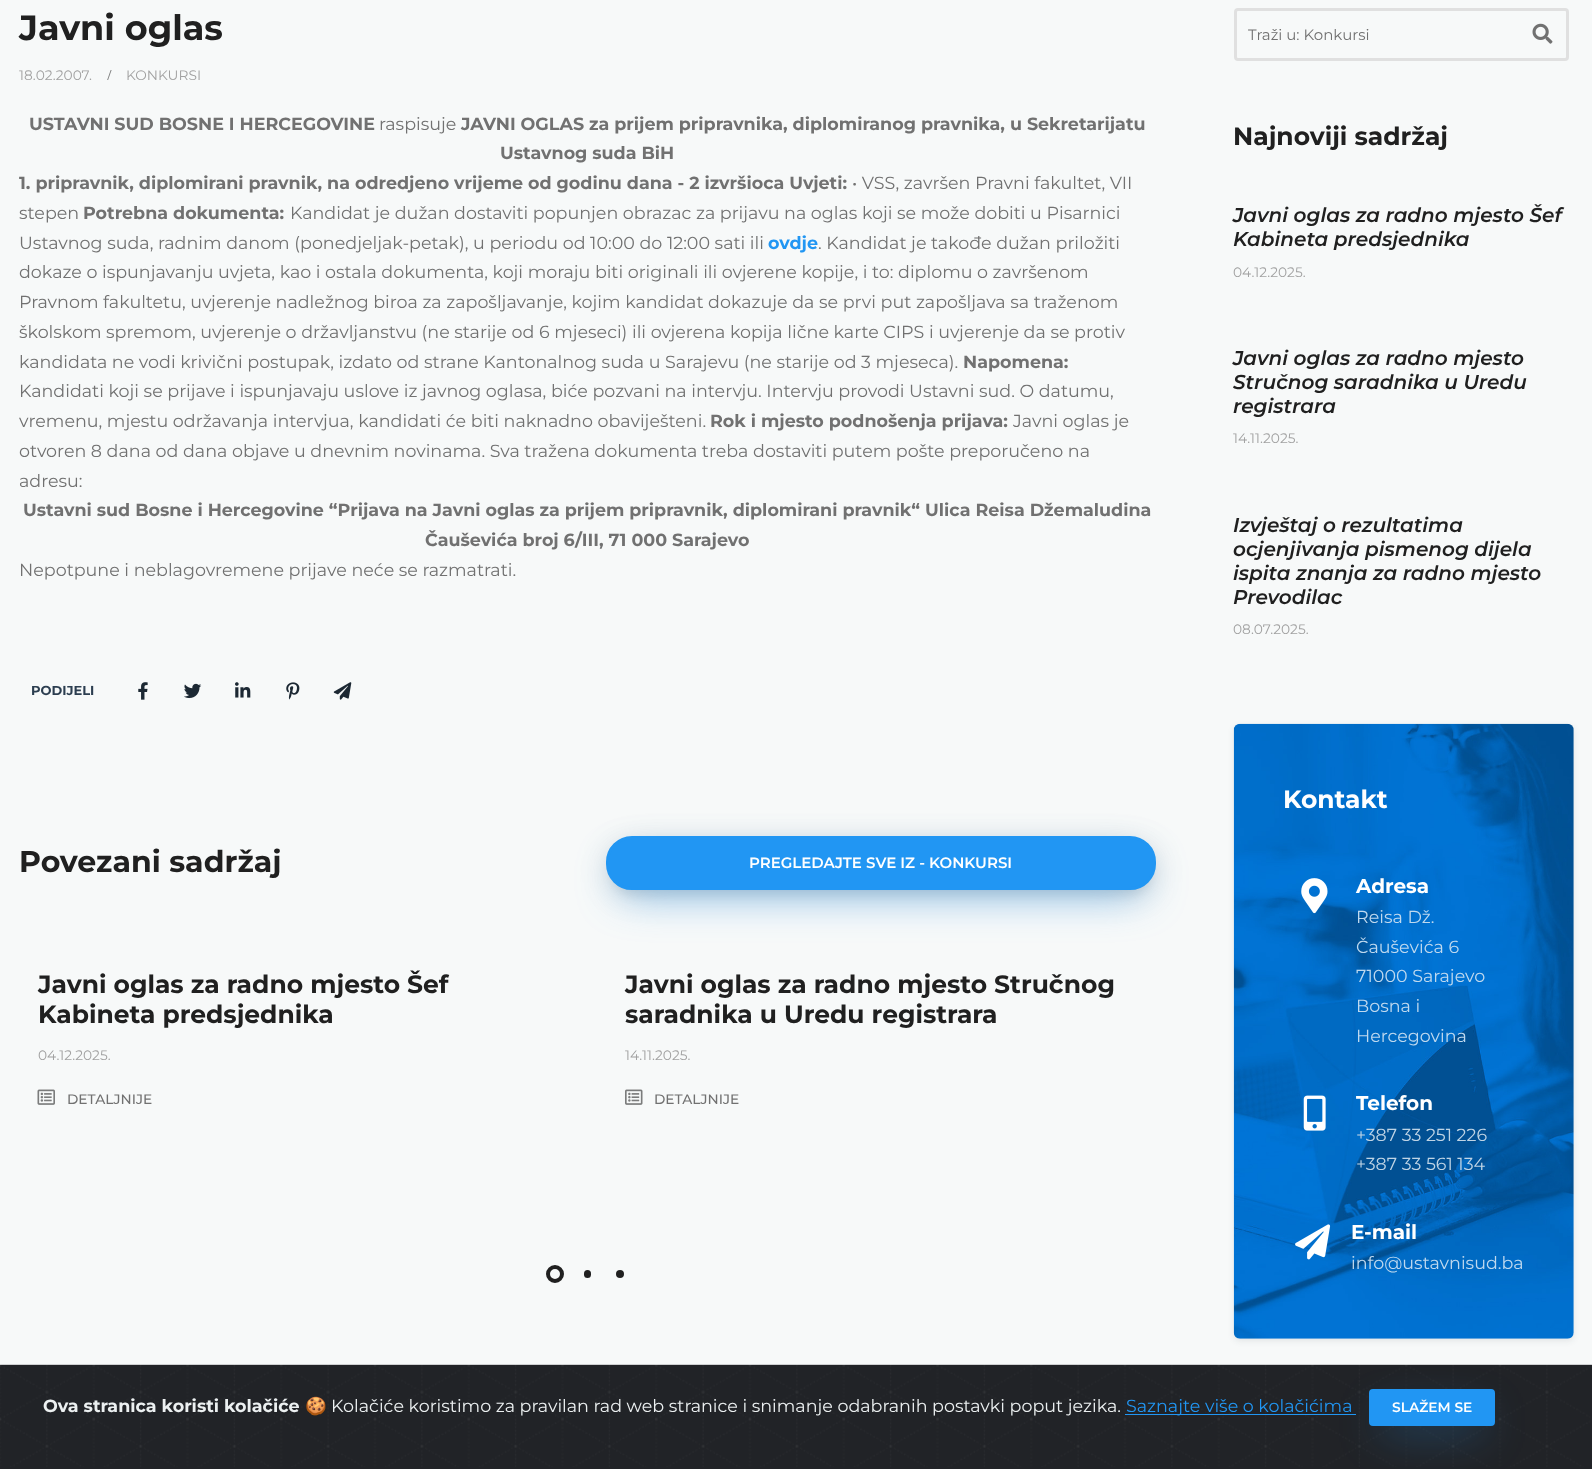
(async () => {
    const canvas = document.querySelector("canvas");
    canvas.width = 1592;
    canvas.height = 1469;
    const context = canvas.getContext("2d");
    context.miterLimit = 4;
    context.fontKerning = "normal";
    function write(s, x, y, font, color) {
        context.font = font;
        context.fillStyle = color;
        context.fillText(s, x, y);
    }
    function block(x, y, w, h, color) {
        context.fillStyle = color;
        context.fillRect(x, y, w, h);
    }
    function card(x, y, w, h, r, color) {
        context.fillStyle = color;
        context.beginPath();
        context.roundRect(x, y, w, h, r);
        context.fill();
    }
    async function photo(src, x, y, w, h) {
        const img = new Image();
        img.src = src;
        await img.decode();
        context.drawImage(img, x, y, w, h);
    }

    block(0, 0, 1592, 1469, "rgb(247, 249, 249)");
    write("Javni oglas", 19, 40, "bold 35px Montserrat", "rgb(32, 32, 32)");
    write("18.02.2007.", 19, 80, "13.75px Montserrat", "rgb(161, 161, 161)");
    context.save();
    context.beginPath();
    context.rect(104, 70, 10, 10);
    context.clip();
    write("/", 107, 80, "13.75px Montserrat", "rgb(124, 125, 125)");
    context.restore();
    write("KONKURSI", 126, 80, "13.75px Montserrat", "rgb(161, 161, 161)");
    write("USTAVNI SUD BOSNE I HERCEGOVINE", 29, 130, "bold 17.5px Montserrat", "rgb(113, 113, 113)");
    write("raspisuje", 379, 130, "17.5px Montserrat", "rgb(113, 113, 113)");
    write("JAVNI OGLAS za prijem pripravnika, diplomiranog pravnika, u Sekretarijatu", 461, 130, "bold 17.5px Montserrat", "rgb(113, 113, 113)");
    write("Ustavnog suda BiH", 500, 159, "bold 17.5px Montserrat", "rgb(113, 113, 113)");
    write("1. pripravnik, diplomirani pravnik, na odredjeno vrijeme od godinu dana - 2 izvršioca Uvjeti:", 19, 189, "bold 17.5px Montserrat", "rgb(113, 113, 113)");
    write("• VSS, završen Pravni fakultet, VII", 852, 189, "17.5px Montserrat", "rgb(113, 113, 113)");
    write("stepen", 19, 219, "17.5px Montserrat", "rgb(113, 113, 113)");
    write("Potrebna dokumenta:", 83, 219, "bold 17.5px Montserrat", "rgb(113, 113, 113)");
    write("Kandidat je dužan dostaviti popunjen obrazac za prijavu na oglas koji se može dobiti u Pisarnici", 290, 219, "17.5px Montserrat", "rgb(113, 113, 113)");
    write("Ustavnog suda, radnim danom (ponedjeljak-petak), u periodu od 10:00 do 12:00 sati ili", 19, 249, "17.5px Montserrat", "rgb(113, 113, 113)");
    write("ovdje", 768, 249, "bold 17.5px Montserrat", "rgb(33, 150, 243)");
    write(". Kandidat je takođe dužan priložiti", 818, 249, "17.5px Montserrat", "rgb(113, 113, 113)");
    write("dokaze o ispunjavanju uvjeta, kao i ostala dokumenta, koji moraju biti originali ili ovjerene kopije, i to: diplomu o završenom", 19, 278, "17.5px Montserrat", "rgb(113, 113, 113)");
    write("Pravnom fakultetu, uvjerenje nadležnog biroa za zapošljavanje, kojim kandidat dokazuje da se prvi put zapošljava sa traženom", 19, 308, "17.5px Montserrat", "rgb(113, 113, 113)");
    write("školskom spremom, uvjerenje o državljanstvu (ne starije od 6 mjeseci) ili ovjerena kopija lične karte CIPS i uvjerenje da se protiv", 19, 338, "17.5px Montserrat", "rgb(113, 113, 113)");
    write("kandidata ne vodi krivični postupak, izdato od strane Kantonalnog suda u Sarajevu (ne starije od 3 mjeseca).", 19, 368, "17.5px Montserrat", "rgb(113, 113, 113)");
    write("Napomena:", 963, 368, "bold 17.5px Montserrat", "rgb(113, 113, 113)");
    write("Kandidati koji se prijave i ispunjavaju uslove iz javnog oglasa, biće pozvani na intervju. Intervju provodi Ustavni sud. O datumu,", 19, 397, "17.5px Montserrat", "rgb(113, 113, 113)");
    write("vremenu, mjestu održavanja intervjua, kandidati će biti naknadno obaviješteni.", 19, 427, "17.5px Montserrat", "rgb(113, 113, 113)");
    write("Rok i mjesto podnošenja prijava:", 710, 427, "bold 17.5px Montserrat", "rgb(113, 113, 113)");
    write("Javni oglas je", 1013, 427, "17.5px Montserrat", "rgb(113, 113, 113)");
    write("otvoren 8 dana od dana objave u dnevnim novinama. Sva tražena dokumenta treba dostaviti putem pošte preporučeno na", 19, 457, "17.5px Montserrat", "rgb(113, 113, 113)");
    write("adresu:", 19, 487, "17.5px Montserrat", "rgb(113, 113, 113)");
    write("Ustavni sud Bosne i Hercegovine “Prijava na Javni oglas za prijem pripravnik, diplomirani pravnik“ Ulica Reisa Džemaludina", 23, 516, "bold 17.5px Montserrat", "rgb(113, 113, 113)");
    write("Čauševića broj 6/III, 71 000 Sarajevo", 425, 546, "bold 17.5px Montserrat", "rgb(113, 113, 113)");
    write("Nepotpune i neblagovremene prijave neće se razmatrati.", 19, 576, "17.5px Montserrat", "rgb(113, 113, 113)");
    write("PODIJELI", 31, 695, "bold 13px Montserrat", "rgb(44, 62, 80)");
    await photo("media/1.png", 138, 682, 10, 18);
    await photo("media/2.png", 184, 683, 18, 16);
    await photo("media/3.png", 235, 682, 16, 16);
    await photo("media/4.png", 286, 682, 14, 18);
    await photo("media/5.png", 333, 682, 19, 18);
    write("Povezani sadržaj", 19, 872, "bold 30px Montserrat", "rgb(32, 32, 32)");
    context.fillStyle = "rgba(0, 0, 0, 0.14)";
    context.filter = "blur(15.5px)";
    context.beginPath();
    context.roundRect(609, 844, 545, 49, 24);
    context.fill();
    context.filter = "none";
    context.fillStyle = "rgba(0, 0, 0, 0.09)";
    context.filter = "blur(6px)";
    context.beginPath();
    context.roundRect(613, 853, 537, 41, 20);
    context.fill();
    context.filter = "none";
    context.fillStyle = "rgba(33, 150, 243, 0.55)";
    context.filter = "blur(22px)";
    context.beginPath();
    context.roundRect(619, 864, 525, 29, 14);
    context.fill();
    context.filter = "none";
    context.fillStyle = "rgb(33, 150, 243)";
    context.beginPath();
    context.roundRect(607.5, 837.5, 547, 51, 24.5);
    context.fill();
    context.strokeStyle = "rgb(33, 150, 243)";
    context.lineWidth = 3;
    context.stroke();
    write("PREGLEDAJTE SVE IZ - KONKURSI", 749, 868, "600 15px Montserrat", "rgb(255, 255, 255)");
    write("Javni oglas za radno mjesto Šef", 38, 993, "bold 25px Montserrat", "rgb(32, 32, 32)");
    write("Kabineta predsjednika", 38, 1023, "bold 25px Montserrat", "rgb(32, 32, 32)");
    write("04.12.2025.", 38, 1060, "13.75px Montserrat", "rgb(161, 161, 161)");
    await photo("media/6.png", 37, 1089, 18, 16);
    write("DETALJNIJE", 67, 1104, "500 13.75px Montserrat", "rgb(113, 113, 113)");
    write("Javni oglas za radno mjesto Stručnog", 625, 993, "bold 25px Montserrat", "rgb(32, 32, 32)");
    write("saradnika u Uredu registrara", 625, 1023, "bold 25px Montserrat", "rgb(32, 32, 32)");
    write("14.11.2025.", 625, 1060, "13.75px Montserrat", "rgb(161, 161, 161)");
    await photo("media/7.png", 625, 1089, 18, 16);
    write("DETALJNIJE", 654, 1104, "500 13.75px Montserrat", "rgb(113, 113, 113)");
    context.beginPath();
    context.arc(555, 1274, 7, 0, Math.PI * 2);
    context.strokeStyle = "rgb(32, 32, 32)";
    context.lineWidth = 4;
    context.stroke();
    card(584, 1270, 7, 8, 3.5, "rgb(32, 32, 32)");
    context.beginPath();
    context.arc(620, 1274, 4, 0, Math.PI * 2);
    context.fill();
    context.beginPath();
    context.roundRect(1235.5, 9.5, 332, 50, 2.5);
    context.strokeStyle = "rgb(224, 224, 224)";
    context.lineWidth = 3;
    context.stroke();
    write("Traži u: Konkursi", 1248, 40, "15px Montserrat", "rgb(113, 113, 113)");
    await photo("media/8.png", 1532, 23, 21, 21);
    write("Najnoviji sadržaj", 1233, 145, "bold 25px Montserrat", "rgb(32, 32, 32)");
    write("Javni oglas za radno mjesto Šef", 1233, 222, "italic 600 20px Montserrat", "rgb(32, 32, 32)");
    write("Kabineta predsjednika", 1233, 246, "italic 600 20px Montserrat", "rgb(32, 32, 32)");
    write("04.12.2025.", 1233, 277, "13.75px Montserrat", "rgb(161, 161, 161)");
    write("Javni oglas za radno mjesto", 1233, 365, "italic 600 20px Montserrat", "rgb(32, 32, 32)");
    write("Stručnog saradnika u Uredu", 1233, 389, "italic 600 20px Montserrat", "rgb(32, 32, 32)");
    write("registrara", 1233, 413, "italic 600 20px Montserrat", "rgb(32, 32, 32)");
    write("14.11.2025.", 1233, 443, "13.75px Montserrat", "rgb(161, 161, 161)");
    write("Izvještaj o rezultatima", 1233, 532, "italic 600 20px Montserrat", "rgb(32, 32, 32)");
    write("ocjenjivanja pismenog dijela", 1233, 556, "italic 600 20px Montserrat", "rgb(32, 32, 32)");
    write("ispita znanja za radno mjesto", 1233, 580, "italic 600 20px Montserrat", "rgb(32, 32, 32)");
    write("Prevodilac", 1233, 604, "italic 600 20px Montserrat", "rgb(32, 32, 32)");
    write("08.07.2025.", 1233, 634, "13.75px Montserrat", "rgb(161, 161, 161)");
    context.fillStyle = "rgba(23, 32, 42, 0.09)";
    context.filter = "blur(3px)";
    context.beginPath();
    context.roundRect(1234, 726, 340, 615, 6);
    context.fill();
    context.filter = "none";
    await photo("media/9.png", 1233, 723, 341, 616);
    write("Kontakt", 1283, 808, "bold 25px Montserrat", "rgb(255, 255, 255)");
    await photo("media/10.png", 1301, 878, 27, 36);
    write("Adresa", 1356, 893, "bold 20px Montserrat", "rgb(255, 255, 255)");
    write("Reisa Dž.", 1356, 923, "17.5px Montserrat", "rgb(191, 217, 239)");
    write("Čauševića 6", 1356, 953, "17.5px Montserrat", "rgb(191, 217, 239)");
    write("71000 Sarajevo", 1356, 982, "17.5px Montserrat", "rgb(191, 217, 239)");
    write("Bosna i", 1356, 1012, "17.5px Montserrat", "rgb(191, 217, 239)");
    write("Hercegovina", 1356, 1042, "17.5px Montserrat", "rgb(191, 217, 239)");
    await photo("media/11.png", 1303, 1095, 23, 36);
    write("Telefon", 1356, 1110, "bold 20px Montserrat", "rgb(255, 255, 255)");
    write("+387 33 251 226", 1356, 1141, "17.5px Montserrat", "rgb(191, 212, 229)");
    write("+387 33 561 134", 1356, 1170, "17.5px Montserrat", "rgb(191, 212, 229)");
    await photo("media/12.png", 1295, 1224, 36, 36);
    write("E-mail", 1351, 1239, "bold 20px Montserrat", "rgb(255, 255, 255)");
    write("info@ustavnisud.ba", 1351, 1269, "17.5px Montserrat", "rgb(191, 217, 239)");
    block(0, 1365, 1592, 104, "rgb(33, 35, 39)");
    await photo("media/13.png", 0, 1364, 1592, 103);
    write("Ova stranica koristi kolačiće", 43, 1412, "bold 17.5px Montserrat", "rgb(236, 240, 241)");
    write("🍪", 305, 1412, "17.5px Noto Color Emoji", "rgb(236, 240, 241)");
    write("Kolačiće koristimo za pravilan rad web stranice i snimanje odabranih postavki poput jezika.", 331, 1412, "17.5px Montserrat", "rgb(236, 240, 241)");
    block(1125, 1414, 231, 1, "rgb(33, 150, 243)");
    write("Saznajte više o kolačićima", 1126, 1412, "17.5px Montserrat", "rgb(33, 150, 243)");
    context.fillStyle = "rgba(33, 150, 243, 0.55)";
    context.filter = "blur(22px)";
    context.beginPath();
    context.rect(1381, 1416, 102, 13);
    context.fill();
    context.filter = "none";
    context.fillStyle = "rgb(33, 150, 243)";
    context.beginPath();
    context.roundRect(1370.5, 1390.5, 123, 34, 2.5);
    context.fill();
    context.strokeStyle = "rgb(33, 150, 243)";
    context.stroke();
    write("SLAŽEM SE", 1392, 1412, "600 13.75px Montserrat", "rgb(255, 255, 255)");
})();
